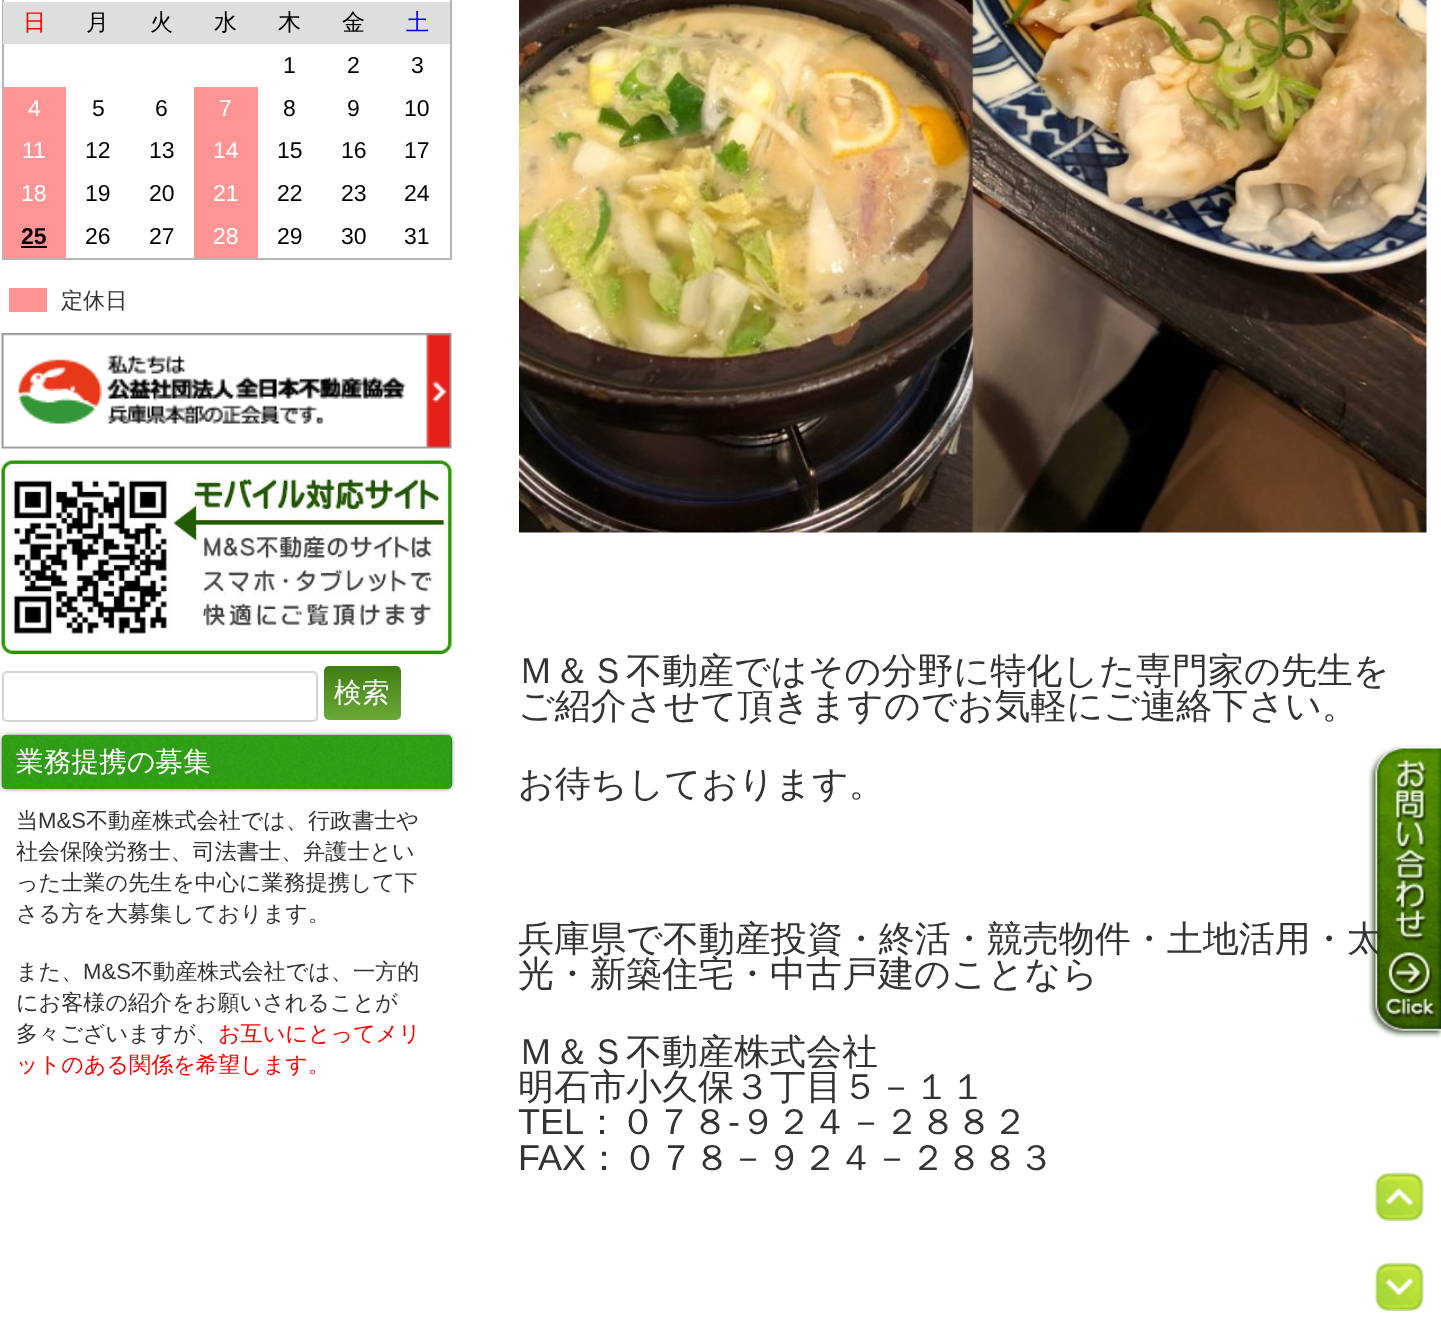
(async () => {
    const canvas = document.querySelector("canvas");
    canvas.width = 1441;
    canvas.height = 1343;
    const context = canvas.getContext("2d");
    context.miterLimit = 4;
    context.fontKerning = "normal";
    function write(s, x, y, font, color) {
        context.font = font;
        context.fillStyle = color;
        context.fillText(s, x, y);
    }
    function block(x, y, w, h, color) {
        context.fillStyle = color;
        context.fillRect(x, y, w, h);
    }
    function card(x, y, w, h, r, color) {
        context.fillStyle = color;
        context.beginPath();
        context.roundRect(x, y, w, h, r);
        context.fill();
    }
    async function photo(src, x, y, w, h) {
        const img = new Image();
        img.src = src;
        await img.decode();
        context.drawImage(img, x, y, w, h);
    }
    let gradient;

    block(0, 0, 1441, 1343, "rgb(255, 255, 255)");
    context.strokeStyle = "rgb(181, 181, 182)";
    context.lineWidth = 2;
    context.strokeRect(3, -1, 448, 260);
    block(3, 2, 447, 42, "rgb(222, 222, 222)");
    write("日", 23, 30, "500 23px WenQuanYi Zen Hei", "rgb(255, 0, 0)");
    write("月", 86, 30, "500 23px WenQuanYi Zen Hei", "rgb(0, 0, 0)");
    write("火", 150, 30, "500 23px WenQuanYi Zen Hei", "rgb(0, 0, 0)");
    write("水", 214, 30, "500 23px WenQuanYi Zen Hei", "rgb(0, 0, 0)");
    write("木", 278, 30, "500 23px WenQuanYi Zen Hei", "rgb(0, 0, 0)");
    write("金", 342, 30, "500 23px WenQuanYi Zen Hei", "rgb(0, 0, 0)");
    write("土", 406, 30, "500 23px WenQuanYi Zen Hei", "rgb(0, 0, 255)");
    write("1", 283, 73, "23px Liberation Sans", "rgb(0, 0, 0)");
    write("2", 347, 73, "23px Liberation Sans", "rgb(0, 0, 0)");
    write("3", 411, 73, "23px Liberation Sans", "rgb(0, 0, 0)");
    block(3, 87, 63, 171, "rgb(255, 148, 148)");
    write("4", 28, 116, "23px Liberation Sans", "rgb(255, 255, 255)");
    write("5", 92, 116, "23px Liberation Sans", "rgb(0, 0, 0)");
    write("6", 155, 116, "23px Liberation Sans", "rgb(0, 0, 0)");
    block(194, 87, 64, 171, "rgb(255, 148, 148)");
    write("7", 219, 116, "23px Liberation Sans", "rgb(255, 255, 255)");
    write("8", 283, 116, "23px Liberation Sans", "rgb(0, 0, 0)");
    write("9", 347, 116, "23px Liberation Sans", "rgb(0, 0, 0)");
    write("10", 404, 116, "23px Liberation Sans", "rgb(0, 0, 0)");
    write("11", 22, 158, "23px Liberation Sans", "rgb(255, 255, 255)");
    write("12", 85, 158, "23px Liberation Sans", "rgb(0, 0, 0)");
    write("13", 149, 158, "23px Liberation Sans", "rgb(0, 0, 0)");
    write("14", 213, 158, "23px Liberation Sans", "rgb(255, 255, 255)");
    write("15", 277, 158, "23px Liberation Sans", "rgb(0, 0, 0)");
    write("16", 341, 158, "23px Liberation Sans", "rgb(0, 0, 0)");
    write("17", 404, 158, "23px Liberation Sans", "rgb(0, 0, 0)");
    write("18", 21, 201, "23px Liberation Sans", "rgb(255, 255, 255)");
    write("19", 85, 201, "23px Liberation Sans", "rgb(0, 0, 0)");
    write("20", 149, 201, "23px Liberation Sans", "rgb(0, 0, 0)");
    write("21", 213, 201, "23px Liberation Sans", "rgb(255, 255, 255)");
    write("22", 277, 201, "23px Liberation Sans", "rgb(0, 0, 0)");
    write("23", 341, 201, "23px Liberation Sans", "rgb(0, 0, 0)");
    write("24", 404, 201, "23px Liberation Sans", "rgb(0, 0, 0)");
    write("25", 21, 244, "bold 23px Liberation Sans", "rgb(0, 0, 0)");
    block(21, 246, 26, 2, "rgb(0, 0, 0)");
    write("26", 85, 244, "23px Liberation Sans", "rgb(0, 0, 0)");
    write("27", 149, 244, "23px Liberation Sans", "rgb(0, 0, 0)");
    write("28", 213, 244, "23px Liberation Sans", "rgb(255, 255, 255)");
    write("29", 277, 244, "23px Liberation Sans", "rgb(0, 0, 0)");
    write("30", 341, 244, "23px Liberation Sans", "rgb(0, 0, 0)");
    write("31", 404, 244, "23px Liberation Sans", "rgb(0, 0, 0)");
    block(9, 288, 38, 24, "rgb(255, 148, 148)");
    write("定休日", 61, 308, "500 22.1px WenQuanYi Zen Hei", "rgb(51, 51, 51)");
    await photo("media/1.png", 1, 333, 451, 116);
    await photo("media/2.png", 1, 460, 451, 194);
    context.beginPath();
    context.roundRect(3, 672, 314, 49, 4);
    context.strokeStyle = "rgb(213, 213, 215)";
    context.stroke();
    gradient = context.createLinearGradient(362, 666, 362, 720);
    gradient.addColorStop(0, "rgb(63, 125, 16)");
    gradient.addColorStop(1, "rgb(106, 170, 57)");
    context.fillStyle = gradient;
    context.beginPath();
    context.roundRect(324, 666, 77, 54, 5);
    context.fill();
    write("検索", 334, 702, "500 27.75px WenQuanYi Zen Hei", "rgb(255, 255, 255)");
    context.fillStyle = "rgba(0, 0, 0, 0.5)";
    context.filter = "blur(2px)";
    context.beginPath();
    context.roundRect(2, 735, 450, 54, 5);
    context.fill();
    context.filter = "none";
    card(2, 735, 450, 54, 5, "rgb(0, 132, 12)");
    await photo("media/3.png", 1, 735, 451, 54);
    write("業務提携の募集", 16, 771, "500 27.75px WenQuanYi Zen Hei", "rgb(255, 255, 255)");
    write("当", 16, 828, "500 22.1px WenQuanYi Zen Hei", "rgb(51, 51, 51)");
    write("M&S", 38, 828, "22.1px Liberation Sans", "rgb(51, 51, 51)");
    write("不動産株式会社では、行政書士や", 86, 828, "500 22.1px WenQuanYi Zen Hei", "rgb(51, 51, 51)");
    write("社会保険労務士、司法書士、弁護士とい", 16, 859, "500 22.1px WenQuanYi Zen Hei", "rgb(51, 51, 51)");
    write("った士業の先生を中心に業務提携して下", 16, 890, "500 22.1px WenQuanYi Zen Hei", "rgb(51, 51, 51)");
    write("さる方を大募集しております。", 16, 921, "500 22.1px WenQuanYi Zen Hei", "rgb(51, 51, 51)");
    write("また、", 16, 979, "500 22.1px WenQuanYi Zen Hei", "rgb(51, 51, 51)");
    write("M&S", 83, 979, "22.1px Liberation Sans", "rgb(51, 51, 51)");
    write("不動産株式会社では、一方的", 131, 979, "500 22.1px WenQuanYi Zen Hei", "rgb(51, 51, 51)");
    write("にお客様の紹介をお願いされることが", 16, 1010, "500 22.1px WenQuanYi Zen Hei", "rgb(51, 51, 51)");
    write("多々ございますが、", 16, 1041, "500 22.1px WenQuanYi Zen Hei", "rgb(51, 51, 51)");
    write("お互いにとってメリ", 218, 1041, "500 22.1px WenQuanYi Zen Hei", "rgb(255, 0, 0)");
    write("ットのある関係を希望します。", 16, 1072, "500 22.1px WenQuanYi Zen Hei", "rgb(255, 0, 0)");
    await photo("media/4.png", 519, 0, 908, 533);
    write("Ｍ＆Ｓ不動産ではその分野に特化した専門家の先生を", 518, 683, "500 36px WenQuanYi Zen Hei", "rgb(51, 51, 51)");
    write("ご紹介させて頂きますのでお気軽にご連絡下さい。", 518, 718, "500 36px WenQuanYi Zen Hei", "rgb(51, 51, 51)");
    write("お待ちしております。", 518, 796, "500 36px WenQuanYi Zen Hei", "rgb(51, 51, 51)");
    write("兵庫県で不動産投資・終活・競売物件・土地活用・太", 518, 951, "500 36px WenQuanYi Zen Hei", "rgb(51, 51, 51)");
    write("光・新築住宅・中古戸建のことなら", 518, 986, "500 36px WenQuanYi Zen Hei", "rgb(51, 51, 51)");
    write("Ｍ＆Ｓ不動産株式会社", 518, 1064, "500 36px WenQuanYi Zen Hei", "rgb(51, 51, 51)");
    write("明石市小久保３丁目５－１１", 518, 1099, "500 36px WenQuanYi Zen Hei", "rgb(51, 51, 51)");
    write("TEL", 518, 1134, "36px Liberation Sans", "rgb(51, 51, 51)");
    write("：０７８", 584, 1134, "500 36px WenQuanYi Zen Hei", "rgb(51, 51, 51)");
    write("-", 728, 1134, "36px Liberation Sans", "rgb(51, 51, 51)");
    write("９２４－２８８２", 740, 1134, "500 36px WenQuanYi Zen Hei", "rgb(51, 51, 51)");
    write("FAX", 518, 1170, "36px Liberation Sans", "rgb(51, 51, 51)");
    write("：０７８－９２４－２８８３", 586, 1170, "500 36px WenQuanYi Zen Hei", "rgb(51, 51, 51)");
    await photo("media/5.png", 1368, 745, 73, 293);
    await photo("media/6.png", 1375, 1173, 49, 48);
    await photo("media/7.png", 1375, 1263, 49, 48);
})();
